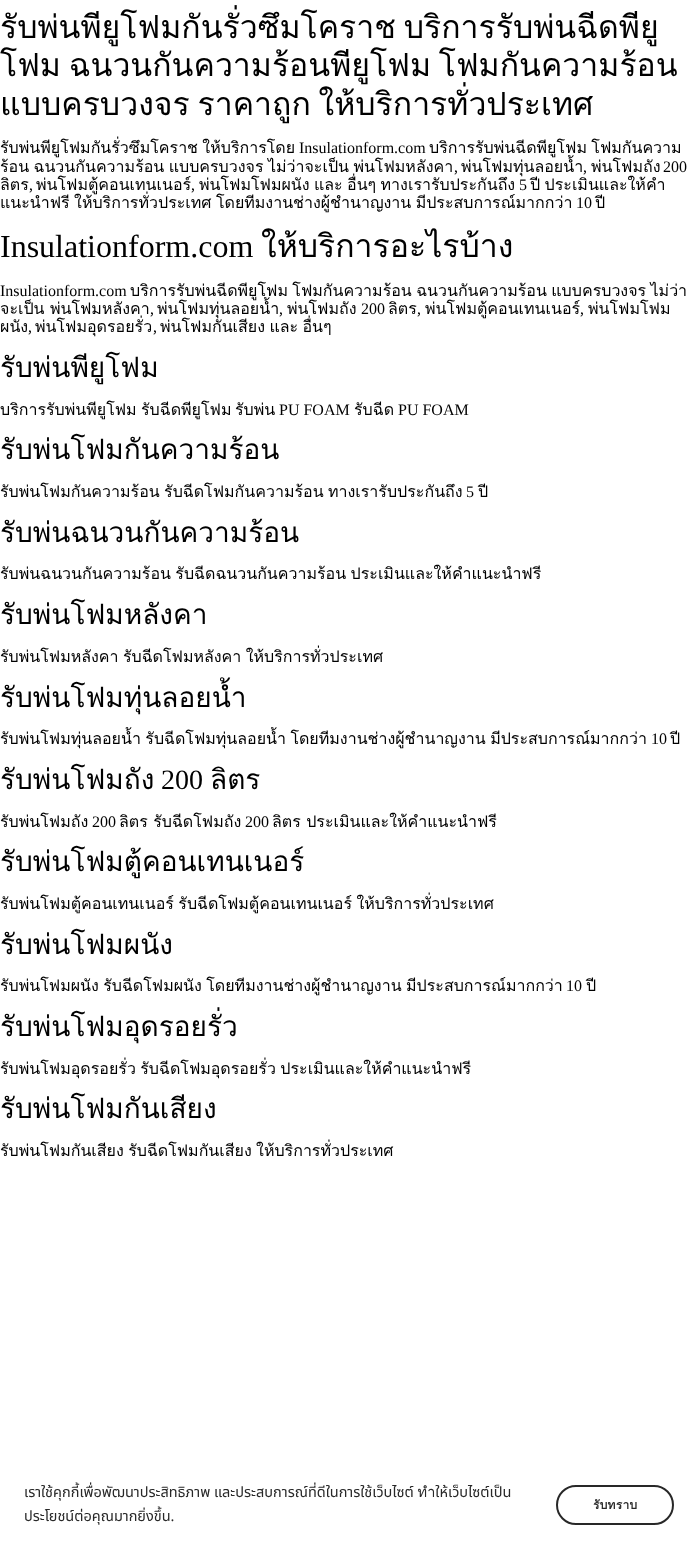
(async () => {
    const canvas = document.querySelector("canvas");
    canvas.width = 698;
    canvas.height = 1543;
    const context = canvas.getContext("2d");
    context.miterLimit = 4;
    context.fontKerning = "normal";
    function write(s, x, y, font, color) {
        context.font = font;
        context.fillStyle = color;
        context.fillText(s, x, y);
    }
    function block(x, y, w, h, color) {
        context.fillStyle = color;
        context.fillRect(x, y, w, h);
    }

    block(0, 0, 698, 1543, "rgb(255, 255, 255)");
    context.wordSpacing = "-3px";
    write("รับพ่นพียูโฟมกันรั่วซึมโคราช บริการรับพ่นฉีดพียู", 0, 38, "32px Loma", "rgb(0, 0, 0)");
    write("โฟม ฉนวนกันความร้อนพียูโฟม โฟมกันความร้อน", 0, 76, "32px Loma", "rgb(0, 0, 0)");
    write("แบบครบวงจร ราคาถูก ให้บริการทั่วประเทศ", 0, 115, "32px Loma", "rgb(0, 0, 0)");
    context.wordSpacing = "-1px";
    write("รับพ่นพียูโฟมกันรั่วซึมโคราช ให้บริการโดย", 0, 153, "16px Loma", "rgb(0, 0, 0)");
    context.wordSpacing = "0px";
    write("Insulationform.com", 299, 153, "16px Liberation Serif", "rgb(0, 0, 0)");
    context.wordSpacing = "-1px";
    write("บริการรับพ่นฉีดพียูโฟม โฟมกันความ", 429, 153, "16px Loma", "rgb(0, 0, 0)");
    write("ร้อน ฉนวนกันความร้อน แบบครบวงจร ไม่ว่าจะเป็น พ่นโฟมหลังคา", 0, 172, "16px Loma", "rgb(0, 0, 0)");
    context.wordSpacing = "0px";
    write(",", 454, 172, "16px Liberation Serif", "rgb(0, 0, 0)");
    write("พ่นโฟมทุ่นลอยน้ำ", 461, 172, "16px Loma", "rgb(0, 0, 0)");
    write(",", 583, 172, "16px Liberation Serif", "rgb(0, 0, 0)");
    write("พ่นโฟมถัง", 591, 172, "16px Loma", "rgb(0, 0, 0)");
    write("200", 663, 172, "16px Liberation Serif", "rgb(0, 0, 0)");
    write("พ่นโฟมตู้คอนเทนเนอร์", 36, 190, "16px Loma", "rgb(0, 0, 0)");
    context.wordSpacing = "-1px";
    write("พ่นโฟมโฟมผนัง และ อื่นๆ ทางเรารับประกันถึง", 199, 190, "16px Loma", "rgb(0, 0, 0)");
    context.wordSpacing = "0px";
    write("5", 519, 190, "16px Liberation Serif", "rgb(0, 0, 0)");
    context.wordSpacing = "-1px";
    write("ปี ประเมินและให้คำ", 530, 190, "16px Loma", "rgb(0, 0, 0)");
    context.wordSpacing = "0px";
    write("ลิตร", 0, 190, "16px Loma", "rgb(0, 0, 0)");
    write(",", 29, 190, "16px Liberation Serif", "rgb(0, 0, 0)");
    write(",", 191, 190, "16px Liberation Serif", "rgb(0, 0, 0)");
    context.wordSpacing = "-1px";
    write("แนะนำฟรี ให้บริการทั่วประเทศ โดยทีมงานช่างผู้ชำนาญงาน มีประสบการณ์มากกว่า", 0, 208, "16px Loma", "rgb(0, 0, 0)");
    context.wordSpacing = "0px";
    write("10", 576, 208, "16px Liberation Serif", "rgb(0, 0, 0)");
    write("ปี", 595, 208, "16px Loma", "rgb(0, 0, 0)");
    write("Insulationform.com", 0, 257, "32px Liberation Serif", "rgb(0, 0, 0)");
    write("ให้บริการอะไรบ้าง", 261, 257, "32px Loma", "rgb(0, 0, 0)");
    write("Insulationform.com", 0, 296, "16px Liberation Serif", "rgb(0, 0, 0)");
    context.wordSpacing = "-1px";
    write("บริการรับพ่นฉีดพียูโฟม โฟมกันความร้อน ฉนวนกันความร้อน แบบครบวงจร ไม่ว่า", 130, 296, "16px Loma", "rgb(0, 0, 0)");
    context.wordSpacing = "0px";
    write("จะเป็น พ่นโฟมหลังคา", 0, 314, "16px Loma", "rgb(0, 0, 0)");
    write(",", 150, 314, "16px Liberation Serif", "rgb(0, 0, 0)");
    write("พ่นโฟมทุ่นลอยน้ำ", 157, 314, "16px Loma", "rgb(0, 0, 0)");
    write(",", 279, 314, "16px Liberation Serif", "rgb(0, 0, 0)");
    write("พ่นโฟมถัง", 287, 314, "16px Loma", "rgb(0, 0, 0)");
    write("200", 361, 314, "16px Liberation Serif", "rgb(0, 0, 0)");
    write("ลิตร", 388, 314, "16px Loma", "rgb(0, 0, 0)");
    write(",", 417, 314, "16px Liberation Serif", "rgb(0, 0, 0)");
    write("พ่นโฟมตู้คอนเทนเนอร์", 425, 314, "16px Loma", "rgb(0, 0, 0)");
    write(",", 580, 314, "16px Liberation Serif", "rgb(0, 0, 0)");
    write("พ่นโฟมโฟม", 588, 314, "16px Loma", "rgb(0, 0, 0)");
    write("ผนัง", 0, 332, "16px Loma", "rgb(0, 0, 0)");
    write(",", 28, 332, "16px Liberation Serif", "rgb(0, 0, 0)");
    write("พ่นโฟมอุดรอยรั่ว", 35, 332, "16px Loma", "rgb(0, 0, 0)");
    write(",", 153, 332, "16px Liberation Serif", "rgb(0, 0, 0)");
    context.wordSpacing = "-1px";
    write("พ่นโฟมกันเสียง และ อื่นๆ", 160, 332, "16px Loma", "rgb(0, 0, 0)");
    context.wordSpacing = "0px";
    write("รับพ่นพียูโฟม", 0, 377, "28px Loma", "rgb(0, 0, 0)");
    write("บริการรับพ่นพียูโฟม", 0, 415, "16px Loma", "rgb(0, 0, 0)");
    write("รับฉีดพียูโฟม", 141, 415, "16px Loma", "rgb(0, 0, 0)");
    write("รับพ่น", 235, 415, "16px Loma", "rgb(0, 0, 0)");
    write("PU FOAM", 279, 415, "16px Liberation Serif", "rgb(0, 0, 0)");
    write("รับฉีด", 354, 415, "16px Loma", "rgb(0, 0, 0)");
    write("PU FOAM", 398, 415, "16px Liberation Serif", "rgb(0, 0, 0)");
    write("รับพ่นโฟมกันความร้อน", 0, 459, "28px Loma", "rgb(0, 0, 0)");
    context.wordSpacing = "-1px";
    write("รับพ่นโฟมกันความร้อน รับฉีดโฟมกันความร้อน ทางเรารับประกันถึง", 0, 497, "16px Loma", "rgb(0, 0, 0)");
    context.wordSpacing = "0px";
    write("5", 466, 497, "16px Liberation Serif", "rgb(0, 0, 0)");
    write("ปี", 478, 497, "16px Loma", "rgb(0, 0, 0)");
    write("รับพ่นฉนวนกันความร้อน", 0, 542, "28px Loma", "rgb(0, 0, 0)");
    context.wordSpacing = "-1px";
    write("รับพ่นฉนวนกันความร้อน รับฉีดฉนวนกันความร้อน ประเมินและให้คำแนะนำฟรี", 0, 579, "16px Loma", "rgb(0, 0, 0)");
    context.wordSpacing = "0px";
    write("รับพ่นโฟมหลังคา", 0, 624, "28px Loma", "rgb(0, 0, 0)");
    context.wordSpacing = "-1px";
    write("รับพ่นโฟมหลังคา รับฉีดโฟมหลังคา ให้บริการทั่วประเทศ", 0, 662, "16px Loma", "rgb(0, 0, 0)");
    context.wordSpacing = "0px";
    write("รับพ่นโฟมทุ่นลอยน้ำ", 0, 707, "28px Loma", "rgb(0, 0, 0)");
    context.wordSpacing = "-1px";
    write("รับพ่นโฟมทุ่นลอยน้ำ รับฉีดโฟมทุ่นลอยน้ำ โดยทีมงานช่างผู้ชำนาญงาน มีประสบการณ์มากกว่า", 0, 744, "16px Loma", "rgb(0, 0, 0)");
    context.wordSpacing = "0px";
    write("10", 651, 744, "16px Liberation Serif", "rgb(0, 0, 0)");
    write("ปี", 670, 744, "16px Loma", "rgb(0, 0, 0)");
    write("รับพ่นโฟมถัง", 0, 789, "28px Loma", "rgb(0, 0, 0)");
    write("200", 161, 789, "28px Liberation Serif", "rgb(0, 0, 0)");
    write("ลิตร", 210, 789, "28px Loma", "rgb(0, 0, 0)");
    write("รับพ่นโฟมถัง", 0, 827, "16px Loma", "rgb(0, 0, 0)");
    write("200", 92, 827, "16px Liberation Serif", "rgb(0, 0, 0)");
    write("ลิตร รับฉีดโฟมถัง", 119, 827, "16px Loma", "rgb(0, 0, 0)");
    write("200", 245, 827, "16px Liberation Serif", "rgb(0, 0, 0)");
    write("ลิตร ประเมินและให้คำแนะนำฟรี", 272, 827, "16px Loma", "rgb(0, 0, 0)");
    write("รับพ่นโฟมตู้คอนเทนเนอร์", 0, 871, "28px Loma", "rgb(0, 0, 0)");
    context.wordSpacing = "-1px";
    write("รับพ่นโฟมตู้คอนเทนเนอร์ รับฉีดโฟมตู้คอนเทนเนอร์ ให้บริการทั่วประเทศ", 0, 909, "16px Loma", "rgb(0, 0, 0)");
    context.wordSpacing = "0px";
    write("รับพ่นโฟมผนัง", 0, 954, "28px Loma", "rgb(0, 0, 0)");
    context.wordSpacing = "-1px";
    write("รับพ่นโฟมผนัง รับฉีดโฟมผนัง โดยทีมงานช่างผู้ชำนาญงาน มีประสบการณ์มากกว่า", 0, 991, "16px Loma", "rgb(0, 0, 0)");
    context.wordSpacing = "0px";
    write("10", 566, 991, "16px Liberation Serif", "rgb(0, 0, 0)");
    write("ปี", 586, 991, "16px Loma", "rgb(0, 0, 0)");
    write("รับพ่นโฟมอุดรอยรั่ว", 0, 1036, "28px Loma", "rgb(0, 0, 0)");
    context.wordSpacing = "-1px";
    write("รับพ่นโฟมอุดรอยรั่ว รับฉีดโฟมอุดรอยรั่ว ประเมินและให้คำแนะนำฟรี", 0, 1074, "16px Loma", "rgb(0, 0, 0)");
    context.wordSpacing = "0px";
    write("รับพ่นโฟมกันเสียง", 0, 1118, "28px Loma", "rgb(0, 0, 0)");
    context.wordSpacing = "-1px";
    write("รับพ่นโฟมกันเสียง รับฉีดโฟมกันเสียง ให้บริการทั่วประเทศ", 0, 1156, "16px Loma", "rgb(0, 0, 0)");
    context.wordSpacing = "0px";
    write("เราใช้คุกกี้เพื่อพัฒนาประสิทธิภาพ และประสบการณ์ที่ดีในการใช้เว็บไซต์ ทำให้เว็บไซต์เป็น", 24, 1497, "14.5px Noto Sans Thai", "rgb(40, 40, 40)");
    write("ประโยชน์ต่อคุณมากยิ่งขึ้น.", 24, 1521, "14.5px Noto Sans Thai", "rgb(40, 40, 40)");
    context.beginPath();
    context.roundRect(557, 1486, 116, 38, 19);
    context.strokeStyle = "rgb(40, 40, 40)";
    context.lineWidth = 2;
    context.stroke();
    context.letterSpacing = "0.25px";
    write("รับทราบ", 593, 1509, "bold 12px Loma", "rgb(40, 40, 40)");
})();
